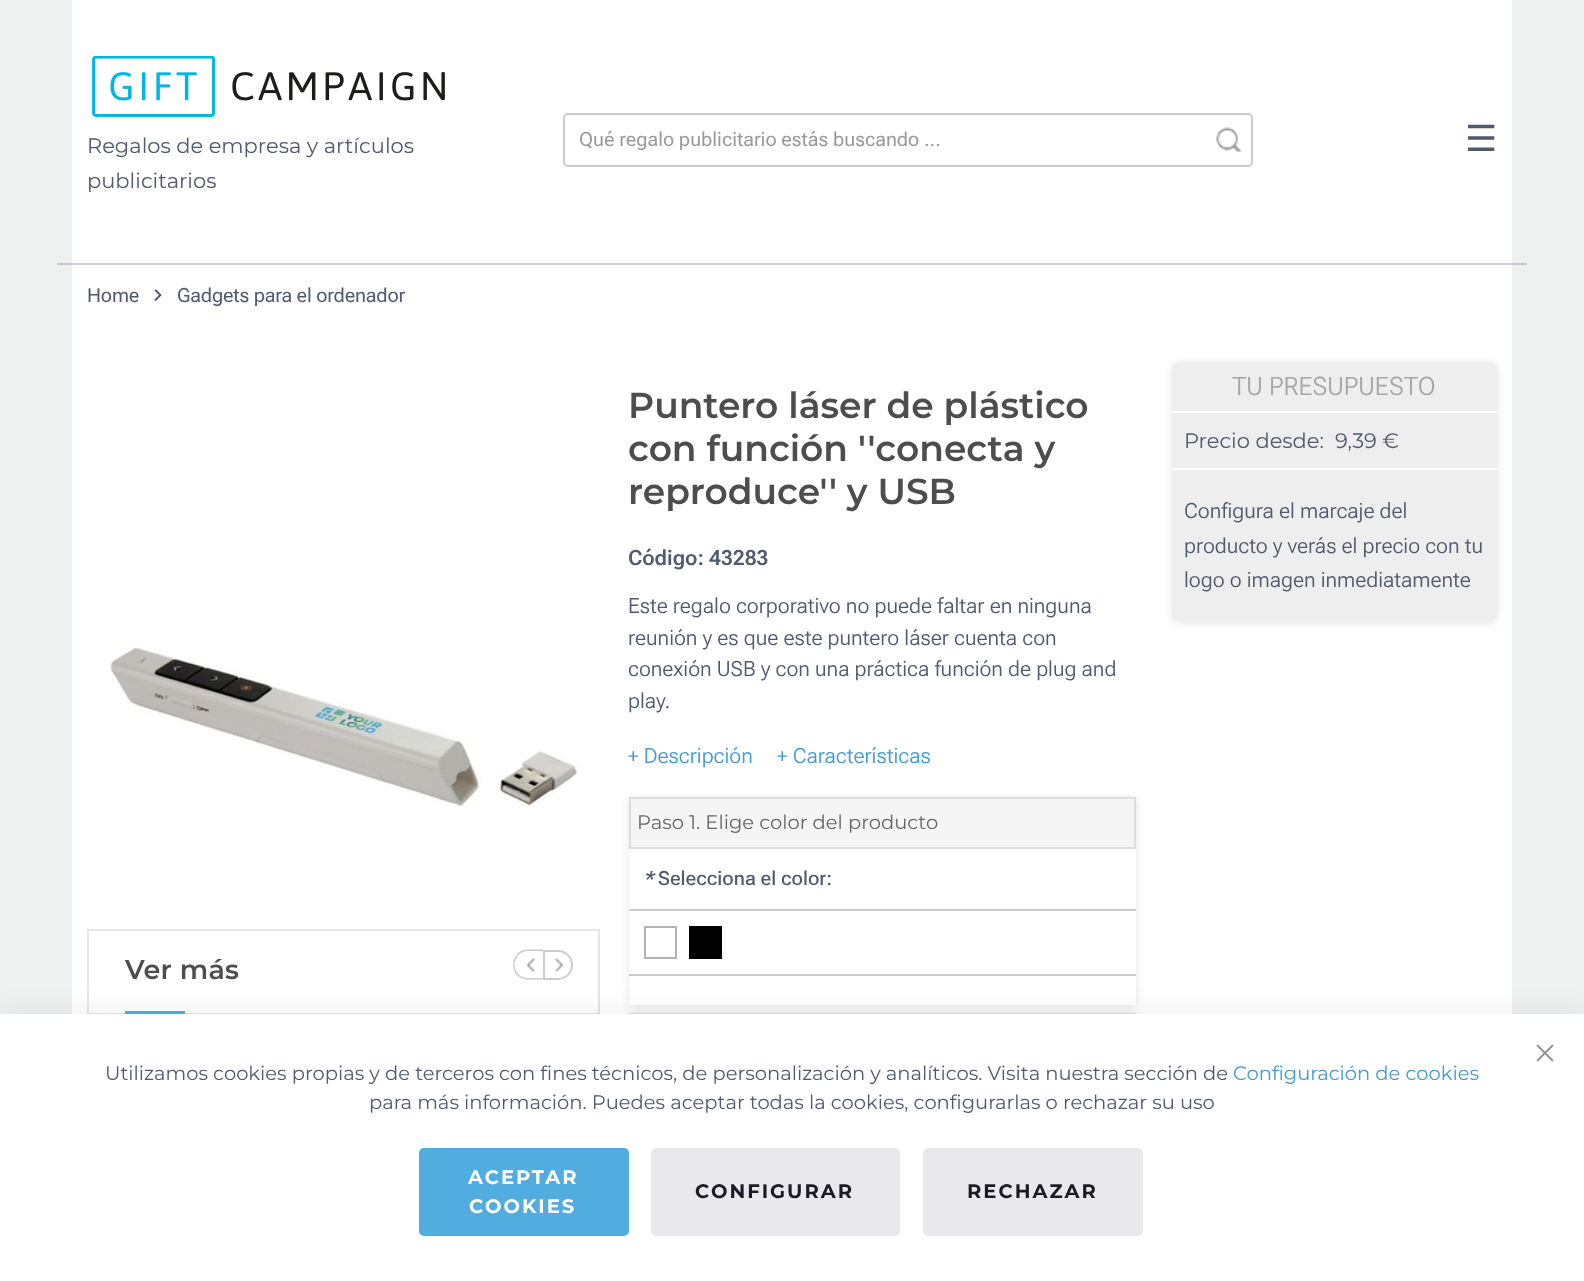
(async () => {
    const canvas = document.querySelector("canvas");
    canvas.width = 1584;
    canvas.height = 1281;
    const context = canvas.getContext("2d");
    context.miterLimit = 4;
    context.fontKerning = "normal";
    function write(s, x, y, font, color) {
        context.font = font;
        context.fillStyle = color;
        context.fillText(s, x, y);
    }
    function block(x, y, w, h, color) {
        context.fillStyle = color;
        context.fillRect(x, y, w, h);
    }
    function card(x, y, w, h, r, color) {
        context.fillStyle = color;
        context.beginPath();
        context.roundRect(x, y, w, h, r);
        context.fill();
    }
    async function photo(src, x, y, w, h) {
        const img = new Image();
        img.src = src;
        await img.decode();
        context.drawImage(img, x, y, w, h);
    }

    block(0, 0, 1584, 1281, "rgb(238, 241, 240)");
    block(57, 263, 1470, 2, "rgb(193, 198, 202)");
    block(72, 0, 1440, 1014, "rgb(255, 255, 255)");
    block(72, 263, 1440, 2, "rgb(205, 208, 213)");
    await photo("media/1.png", 92, 56, 353, 61);
    write("Regalos de empresa y artículos", 87, 153, "21px Montserrat", "rgb(79, 90, 109)");
    write("publicitarios", 87, 188, "21px Montserrat", "rgb(79, 90, 109)");
    context.beginPath();
    context.roundRect(564, 114, 688, 52, 4);
    context.strokeStyle = "rgb(204, 204, 204)";
    context.lineWidth = 2;
    context.stroke();
    write("Qué regalo publicitario estás buscando ...", 579, 146, "19.5px Roboto Flex", "rgb(153, 153, 153)");
    await photo("media/2.png", 1216, 127, 26, 25);
    write("☰", 1465, 151, "36px DejaVu Sans", "rgb(79, 90, 109)");
    context.letterSpacing = "-0.15px";
    write("Home", 87, 302, "19.5px Roboto Flex", "rgb(79, 90, 109)");
    await photo("media/3.png", 154, 289, 8, 12);
    write("Gadgets para el ordenador", 177, 302, "19.5px Roboto Flex", "rgb(79, 90, 109)");
    context.letterSpacing = "0px";
    write("Puntero láser de plástico", 628, 418, "600 36px Montserrat", "rgb(77, 77, 77)");
    write("con función ''conecta y", 628, 461, "600 36px Montserrat", "rgb(77, 77, 77)");
    write("reproduce'' y USB", 628, 504, "600 36px Montserrat", "rgb(77, 77, 77)");
    write("Código: 43283", 628, 565, "600 21px Roboto Flex", "rgb(79, 90, 109)");
    write("Este regalo corporativo no puede faltar en ninguna", 628, 613, "300 21px Roboto Flex", "rgb(79, 90, 109)");
    write("reunión y es que este puntero láser cuenta con", 628, 645, "300 21px Roboto Flex", "rgb(79, 90, 109)");
    write("conexión USB y con una práctica función de plug and", 628, 676, "300 21px Roboto Flex", "rgb(79, 90, 109)");
    write("play.", 628, 708, "300 21px Roboto Flex", "rgb(79, 90, 109)");
    write("+ Descripción", 628, 763, "300 21px Roboto Flex", "rgb(66, 154, 214)");
    write("+ Características", 777, 763, "300 21px Roboto Flex", "rgb(66, 154, 214)");
    context.save();
    context.beginPath();
    context.moveTo(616, 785);
    context.lineTo(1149, 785);
    context.lineTo(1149, 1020);
    context.lineTo(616, 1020);
    context.closePath();
    context.moveTo(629, 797);
    context.lineTo(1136, 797);
    context.lineTo(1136, 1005);
    context.lineTo(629, 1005);
    context.closePath();
    context.clip("evenodd");
    context.fillStyle = "rgba(0, 0, 0, 0.1)";
    context.filter = "blur(4px)";
    context.beginPath();
    context.rect(629, 798, 507, 209);
    context.fill();
    context.filter = "none";
    context.restore();
    context.fillStyle = "rgb(245, 245, 245)";
    context.beginPath();
    context.rect(630, 798, 505, 50);
    context.fill();
    context.strokeStyle = "rgb(221, 221, 221)";
    context.stroke();
    write("Paso 1. Elige color del producto", 637, 829, "19.5px Montserrat", "rgb(102, 102, 102)");
    block(629, 909, 507, 2, "rgba(0, 0, 0, 0.2)");
    write("*", 643, 885, "italic 500 19.5px Roboto Flex", "rgb(79, 90, 109)");
    write("Selecciona el color:", 658, 885, "500 19.5px Roboto Flex", "rgb(79, 90, 109)");
    block(629, 974, 507, 2, "rgba(0, 0, 0, 0.2)");
    context.strokeStyle = "rgb(179, 179, 179)";
    context.strokeRect(645, 927, 31, 31);
    block(689, 926, 33, 33, "rgb(0, 0, 0)");
    context.fillStyle = "rgba(0, 0, 0, 0.1)";
    context.filter = "blur(4px)";
    context.beginPath();
    context.rect(629, 1014, 507, 53);
    context.fill();
    context.filter = "none";
    context.strokeStyle = "rgb(221, 221, 221)";
    context.strokeRect(630, 1014, 505, 50);
    await photo("media/4.png", 110, 647, 470, 161);
    context.strokeStyle = "rgb(230, 230, 230)";
    context.strokeRect(88, 930, 511, 260);
    block(89, 1013, 510, 1, "rgba(0, 0, 0, 0.1)");
    context.letterSpacing = "0.25px";
    write("Ver más", 125, 979, "600 27px Montserrat", "rgb(77, 77, 77)");
    block(125, 1011, 60, 3, "rgb(81, 172, 224)");
    context.fillStyle = "rgb(204, 204, 204)";
    context.beginPath();
    context.moveTo(528, 949.5);
    context.lineTo(543, 949.5);
    context.lineTo(543, 979.5);
    context.bezierCurveTo(537.5, 979.5, 527, 980.5, 522, 978.5);
    context.bezierCurveTo(507.5, 972, 512, 949.5, 528, 949.5);
    context.closePath();
    context.moveTo(528, 951);
    context.lineTo(543, 951);
    context.lineTo(543, 978);
    context.bezierCurveTo(538, 978, 527, 979, 522.5, 977);
    context.bezierCurveTo(509.5, 971.5, 513.5, 951, 528, 951);
    context.closePath();
    context.fill("evenodd");
    await photo("media/5.png", 526, 958, 10, 17);
    context.beginPath();
    context.roundRect(544, 951, 28, 28, [0, 14, 14, 0]);
    context.strokeStyle = "rgb(204, 204, 204)";
    context.stroke();
    await photo("media/6.png", 554, 958, 10, 17);
    context.fillStyle = "rgba(0, 0, 0, 0.1)";
    context.filter = "blur(4px)";
    context.beginPath();
    context.roundRect(1172, 363, 325, 260, 8);
    context.fill();
    context.filter = "none";
    card(1172, 362, 325, 259, 8, "rgb(238, 238, 238)");
    block(1172, 411, 325, 2, "rgb(255, 255, 255)");
    context.letterSpacing = "0px";
    write("TU PRESUPUESTO", 1232, 395, "300 25.5px 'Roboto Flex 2'", "rgb(165, 165, 165)");
    block(1172, 468, 325, 2, "rgb(255, 255, 255)");
    write("Precio desde:", 1184, 448, "21px Montserrat", "rgb(79, 90, 109)");
    write("9,39 €", 1335, 448, "21px Montserrat", "rgb(79, 90, 109)");
    write("Configura el marcaje del", 1184, 518, "300 21px Roboto Flex", "rgb(79, 90, 109)");
    write("producto y verás el precio con tu", 1184, 553, "300 21px Roboto Flex", "rgb(79, 90, 109)");
    write("logo o imagen inmediatamente", 1184, 587, "300 21px Roboto Flex", "rgb(79, 90, 109)");
    context.fillStyle = "rgba(0, 0, 0, 0.06)";
    context.filter = "blur(13.5px)";
    context.beginPath();
    context.rect(0, 1011, 1584, 267);
    context.fill();
    context.filter = "none";
    block(0, 1014, 1584, 267, "rgb(255, 255, 255)");
    await photo("media/7.png", 1536, 1044, 18, 18);
    write("Utilizamos cookies propias y de terceros con fines técnicos, de personalización y analíticos. Visita nuestra sección de", 105, 1080, "19.5px Montserrat", "rgb(79, 90, 109)");
    write("Configuración de cookies", 1233, 1080, "19.5px Montserrat", "rgb(66, 154, 214)");
    write("para más información. Puedes aceptar todas la cookies, configurarlas o rechazar su uso", 369, 1109, "19.5px Montserrat", "rgb(79, 90, 109)");
    card(419, 1148, 210, 88, 5, "rgb(81, 172, 224)");
    context.letterSpacing = "2px";
    write("ACEPTAR", 468, 1184, "bold 19.5px Montserrat", "rgb(255, 255, 255)");
    write("COOKIES", 469, 1213, "bold 19.5px Montserrat", "rgb(255, 255, 255)");
    card(651, 1148, 249, 88, 5, "rgb(233, 233, 237)");
    write("CONFIGURAR", 695, 1198, "bold 19.5px Montserrat", "rgb(28, 26, 39)");
    card(923, 1148, 220, 88, 5, "rgb(233, 233, 237)");
    write("RECHAZAR", 967, 1198, "bold 19.5px Montserrat", "rgb(28, 26, 39)");
})();
